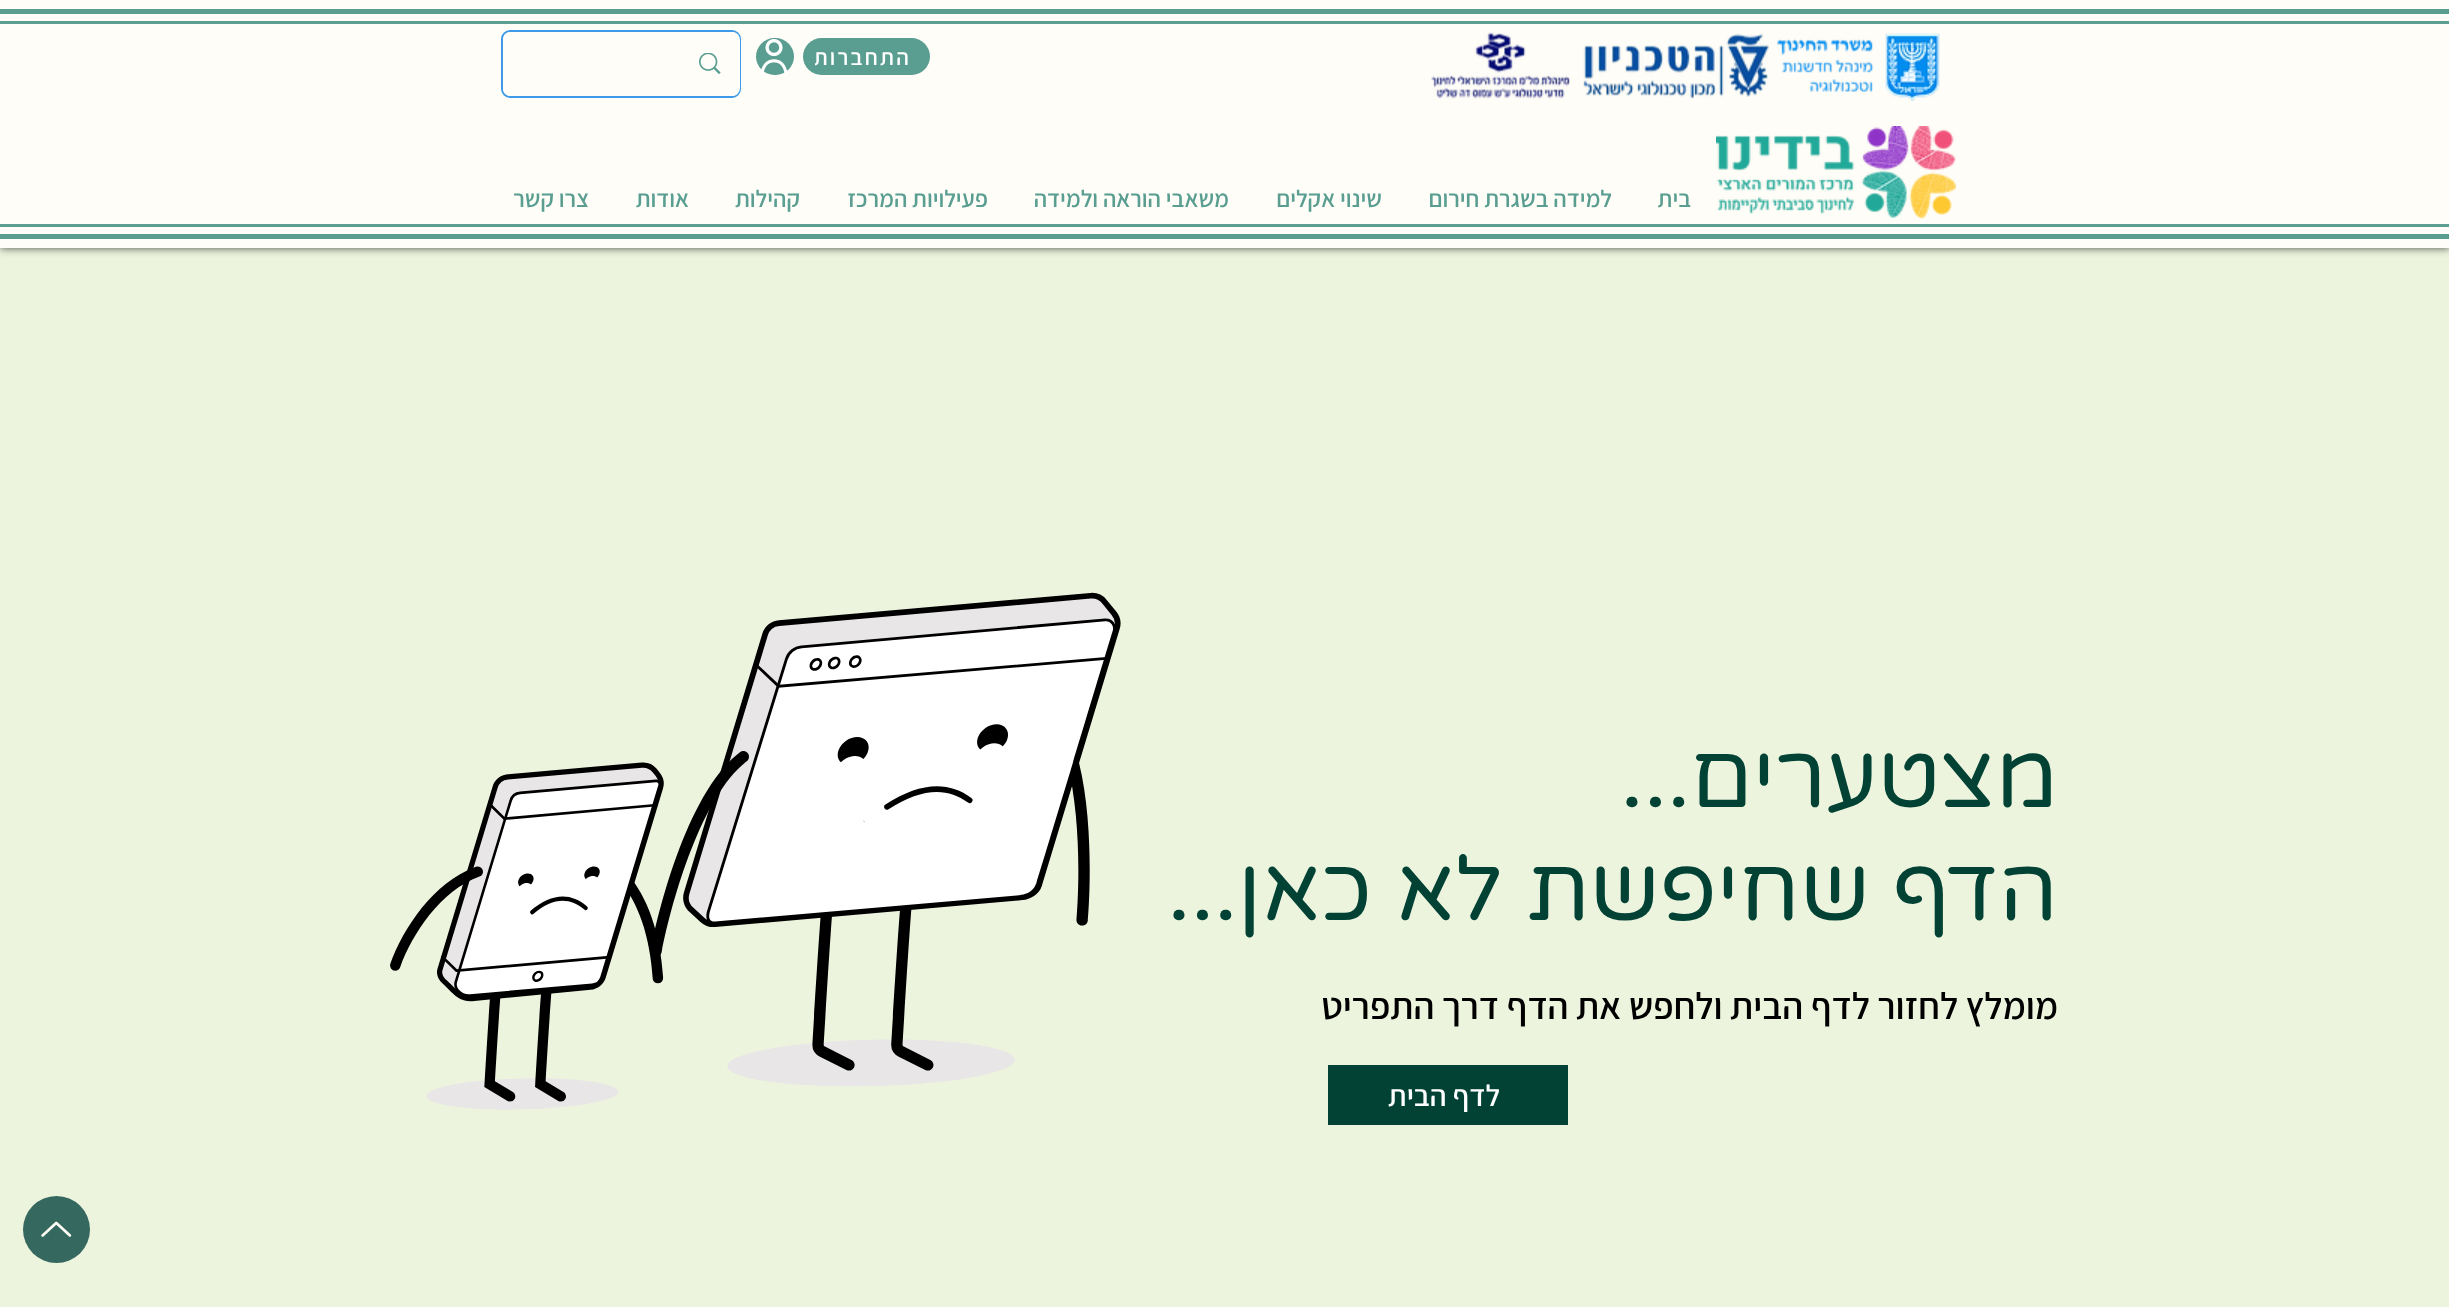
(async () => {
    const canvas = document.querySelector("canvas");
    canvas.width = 2449;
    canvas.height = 1307;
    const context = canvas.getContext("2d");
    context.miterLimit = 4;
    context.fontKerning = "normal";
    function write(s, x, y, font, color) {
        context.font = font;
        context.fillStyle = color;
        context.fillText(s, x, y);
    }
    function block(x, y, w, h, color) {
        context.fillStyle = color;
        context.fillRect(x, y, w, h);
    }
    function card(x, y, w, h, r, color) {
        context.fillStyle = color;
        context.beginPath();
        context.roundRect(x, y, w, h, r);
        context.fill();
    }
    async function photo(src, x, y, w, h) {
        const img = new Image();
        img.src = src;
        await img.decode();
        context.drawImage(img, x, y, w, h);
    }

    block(0, 0, 2449, 1307, "rgb(237, 244, 222)");
    context.fillStyle = "rgba(0, 0, 0, 0.7)";
    context.filter = "blur(4px)";
    context.beginPath();
    context.rect(0, 0, 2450, 248);
    context.fill();
    context.filter = "none";
    block(0, 0, 2449, 248, "rgb(255, 253, 247)");
    block(0, 9, 2449, 5, "rgb(90, 158, 145)");
    block(0, 234, 2449, 5, "rgb(90, 158, 145)");
    block(0, 21, 2449, 3, "rgb(90, 158, 145)");
    block(0, 224, 2449, 3, "rgb(90, 158, 145)");
    await photo("media/1.png", 1777, 33, 163, 68);
    await photo("media/2.png", 1583, 33, 186, 66);
    await photo("media/3.png", 1430, 32, 140, 67);
    card(803, 38, 127, 37, 18.5, "rgb(90, 158, 145)");
    context.save();
    context.beginPath();
    context.rect(815, 42, 96, 29);
    context.clip();
    context.letterSpacing = "2.25px";
    context.direction = "rtl";
    write("התחברות", 911, 65, "600 22.5px Assistant", "rgb(255, 255, 255)");
    context.restore();
    card(756, 38, 38, 37, 18.5, "rgb(90, 158, 145)");
    await photo("media/4.png", 760, 39, 28, 36);
    context.beginPath();
    context.roundRect(502, 31, 238, 66, 8);
    context.strokeStyle = "rgb(61, 155, 233)";
    context.lineWidth = 2;
    context.stroke();
    card(503, 32, 237, 64, 8, "rgb(255, 253, 247)");
    await photo("media/5.png", 699, 53, 22, 21);
    await photo("media/6.png", 1716, 126, 240, 94);
    context.direction = "rtl";
    write("בית", 1691, 207, "600 24px Assistant", "rgb(90, 158, 145)");
    write("למידה בשגרת חירום", 1612, 207, "600 24px Assistant", "rgb(90, 158, 145)");
    write("שינוי אקלים", 1382, 207, "600 24px Assistant", "rgb(90, 158, 145)");
    write("משאבי הוראה ולמידה", 1229, 207, "600 24px Assistant", "rgb(90, 158, 145)");
    write("פעילויות המרכז", 988, 207, "600 24px Assistant", "rgb(90, 158, 145)");
    write("קהילות", 800, 207, "600 24px Assistant", "rgb(90, 158, 145)");
    write("אודות", 689, 207, "600 24px Assistant", "rgb(90, 158, 145)");
    write("צרו קשר", 589, 207, "600 24px Assistant", "rgb(90, 158, 145)");
    write("מצטערים...", 2058, 807, "90px Varela Round", "rgb(1, 66, 53)");
    write("הדף שחיפשת לא כאן...", 2058, 920, "90px Varela Round", "rgb(1, 66, 53)");
    write("מומלץ לחזור לדף הבית ולחפש את הדף דרך התפריט", 2058, 1019, "600 37.5px Assistant", "rgb(0, 0, 0)");
    block(1328, 1065, 240, 60, "rgb(1, 66, 53)");
    write("לדף הבית", 1500, 1106, "600 30px Assistant", "rgb(255, 255, 255)");
    await photo("media/7.png", 390, 592, 731, 518);
    context.fillStyle = "rgb(53, 104, 94)";
    context.beginPath();
    context.arc(56.5, 1229.5, 33.5, 0, Math.PI * 2);
    context.fill();
    await photo("media/8.png", 41, 1221, 31, 16);
})();
